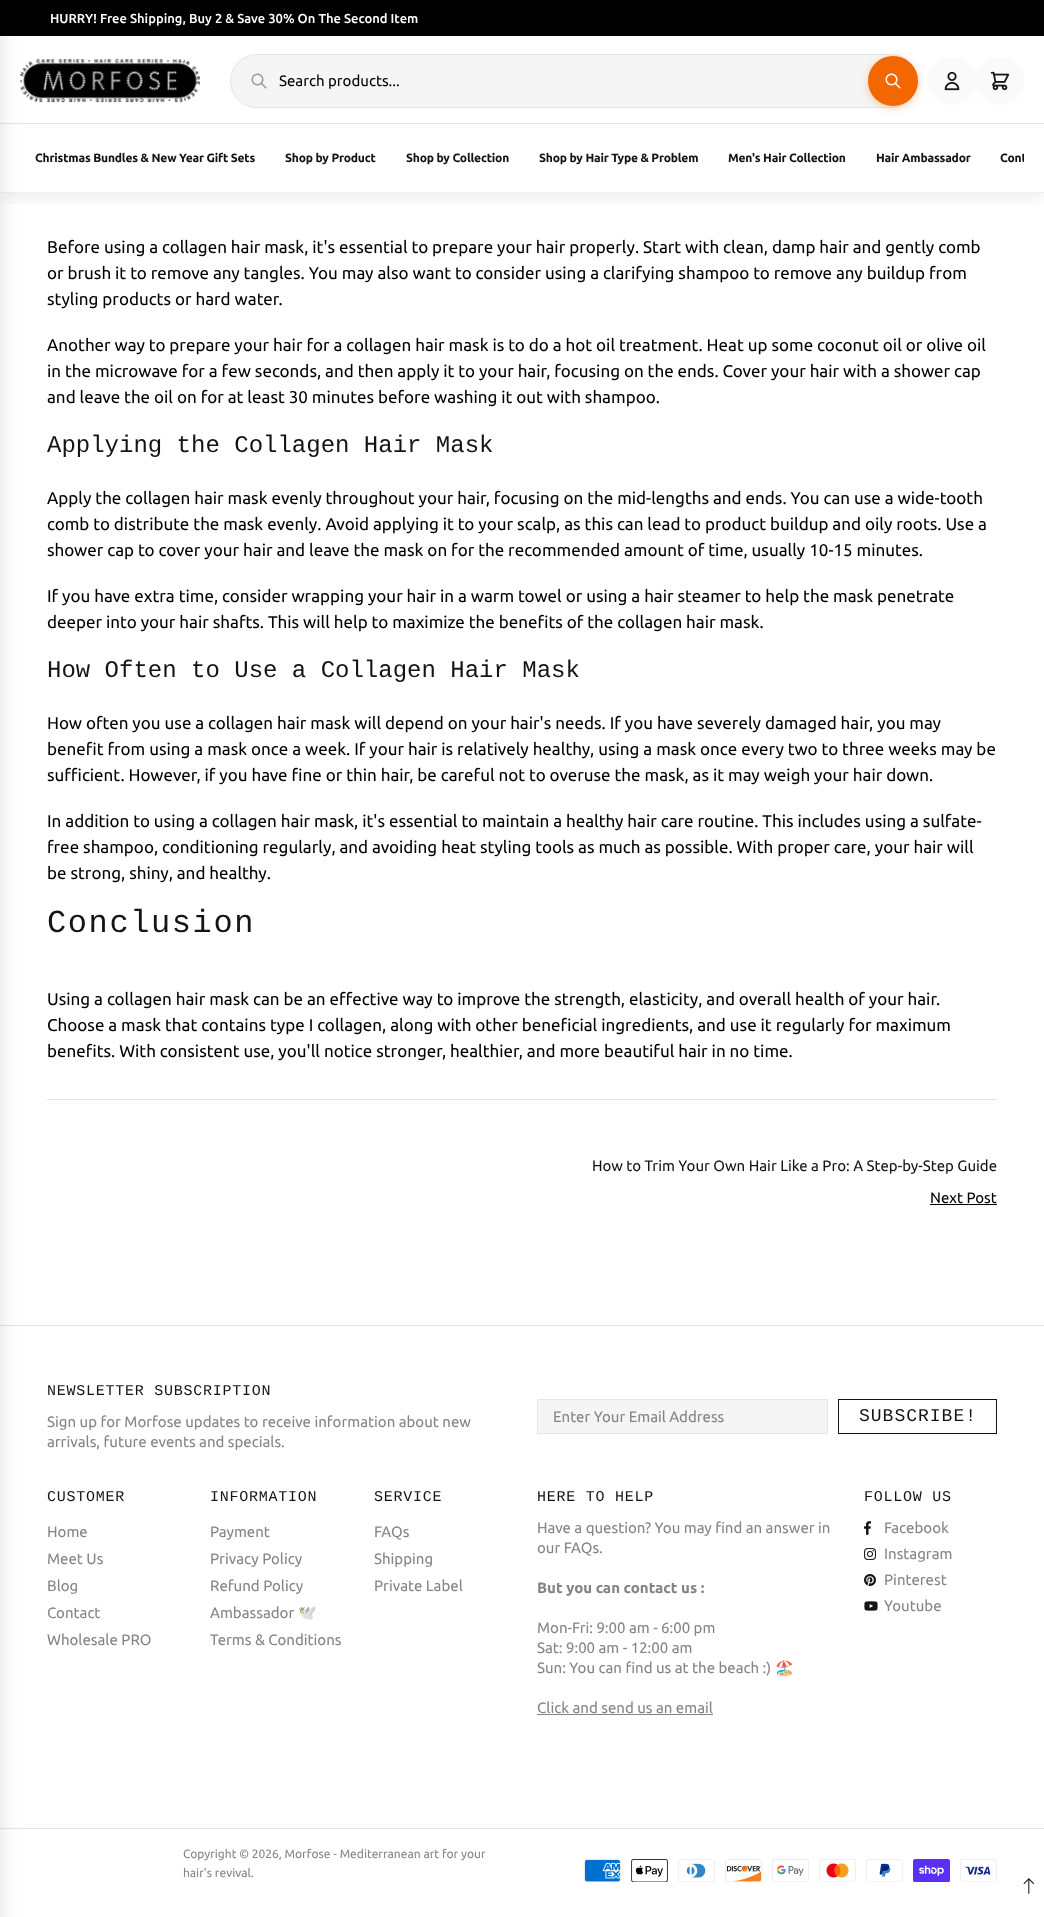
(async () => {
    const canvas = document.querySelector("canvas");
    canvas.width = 1044;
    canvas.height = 1917;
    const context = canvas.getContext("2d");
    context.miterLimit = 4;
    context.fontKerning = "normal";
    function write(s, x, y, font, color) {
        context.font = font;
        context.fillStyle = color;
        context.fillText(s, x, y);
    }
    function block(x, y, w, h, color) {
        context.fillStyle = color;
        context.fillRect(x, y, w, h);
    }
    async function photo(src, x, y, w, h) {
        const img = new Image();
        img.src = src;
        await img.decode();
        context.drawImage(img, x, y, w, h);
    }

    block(0, 0, 1044, 1917, "rgb(255, 255, 255)");
    context.save();
    context.beginPath();
    context.rect(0, 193, 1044, 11);
    context.clip();
    context.fillStyle = "rgba(0, 0, 0, 0.08)";
    context.filter = "blur(10px)";
    context.beginPath();
    context.rect(0, 32, 1044, 165);
    context.fill();
    context.filter = "none";
    context.restore();
    block(0, 192, 1044, 1, "rgb(240, 240, 240)");
    await photo("media/1.png", 20, 59, 180, 44);
    block(0, 123, 1044, 1, "rgb(229, 229, 229)");
    block(0, 1325, 1044, 1, "rgb(229, 229, 229)");
    block(0, 1828, 1044, 1, "rgb(229, 229, 229)");
    context.fillStyle = "rgba(0, 0, 0, 0.1)";
    context.filter = "blur(10px)";
    context.beginPath();
    context.rect(-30, 28, 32, 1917);
    context.fill();
    context.filter = "none";
    block(0, 0, 1044, 36, "rgb(0, 0, 0)");
    write("HURRY! Free Shipping, Buy 2 & Save 30% On The Second Item", 50, 23, "500 13px Ubuntu", "rgb(255, 255, 255)");
    context.fillStyle = "rgb(245, 245, 245)";
    context.beginPath();
    context.roundRect(230.5, 54.5, 687, 53, 26.5);
    context.fill();
    context.strokeStyle = "rgb(229, 229, 229)";
    context.stroke();
    await photo("media/2.png", 251, 73, 16, 16);
    write("Search products...", 279, 86, "15px Ubuntu", "rgb(0, 0, 0)");
    context.fillStyle = "rgb(250, 250, 250)";
    context.beginPath();
    context.arc(952, 81, 24, 0, Math.PI * 2);
    context.fill();
    context.fillStyle = "rgba(243, 103, 3, 0.3)";
    context.filter = "blur(4px)";
    context.beginPath();
    context.roundRect(868, 58, 50, 50, 25);
    context.fill();
    context.filter = "none";
    context.fillStyle = "rgb(243, 103, 3)";
    context.beginPath();
    context.arc(893, 81, 24, 0, Math.PI * 2);
    context.fill();
    context.strokeStyle = "rgb(243, 103, 3)";
    context.lineWidth = 2;
    context.stroke();
    await photo("media/3.png", 885, 73, 16, 16);
    await photo("media/4.png", 944, 71, 16, 20);
    context.fillStyle = "rgb(250, 250, 250)";
    context.beginPath();
    context.arc(1000, 81, 24, 0, Math.PI * 2);
    context.fill();
    await photo("media/5.png", 990, 71, 20, 20);
    context.letterSpacing = "-0.2px";
    write("Christmas Bundles & New Year Gift Sets", 35, 162, "bold 12px Ubuntu", "rgb(20, 20, 20)");
    write("Shop by Product", 285, 162, "bold 12px Ubuntu", "rgb(20, 20, 20)");
    write("Shop by Collection", 406, 162, "bold 12px Ubuntu", "rgb(20, 20, 20)");
    write("Shop by Hair Type & Problem", 539, 162, "bold 12px Ubuntu", "rgb(20, 20, 20)");
    write("Men's Hair Collection", 728, 162, "bold 12px Ubuntu", "rgb(20, 20, 20)");
    write("Hair Ambassador", 876, 162, "bold 12px Ubuntu", "rgb(20, 20, 20)");
    context.save();
    context.beginPath();
    context.rect(20, 124, 1004, 68);
    context.clip();
    write("Cont", 1000, 162, "bold 12px Ubuntu", "rgb(20, 20, 20)");
    context.restore();
    context.letterSpacing = "0px";
    write("Before using a collagen hair mask, it's essential to prepare your hair properly. Start with clean, damp hair and gently comb", 47, 253, "17px Ubuntu", "rgb(0, 0, 0)");
    write("or brush it to remove any tangles. You may also want to consider using a clarifying shampoo to remove any buildup from", 47, 279, "17px Ubuntu", "rgb(0, 0, 0)");
    write("styling products or hard water.", 47, 305, "17px Ubuntu", "rgb(0, 0, 0)");
    write("Another way to prepare your hair for a collagen hair mask is to do a hot oil treatment. Heat up some coconut oil or olive oil", 47, 351, "17px Ubuntu", "rgb(0, 0, 0)");
    write("in the microwave for a few seconds, and then apply it to your hair, focusing on the ends. Cover your hair with a shower cap", 47, 377, "17px Ubuntu", "rgb(0, 0, 0)");
    write("and leave the oil on for at least 30 minutes before washing it out with shampoo.", 47, 403, "17px Ubuntu", "rgb(0, 0, 0)");
    write("Applying the Collagen Hair Mask", 47, 452, "24px Liberation Mono", "rgb(20, 20, 20)");
    write("Apply the collagen hair mask evenly throughout your hair, focusing on the mid-lengths and ends. You can use a wide-tooth", 47, 504, "17px Ubuntu", "rgb(0, 0, 0)");
    write("comb to distribute the mask evenly. Avoid applying it to your scalp, as this can lead to product buildup and oily roots. Use a", 47, 530, "17px Ubuntu", "rgb(0, 0, 0)");
    write("shower cap to cover your hair and leave the mask on for the recommended amount of time, usually 10-15 minutes.", 47, 556, "17px Ubuntu", "rgb(0, 0, 0)");
    write("If you have extra time, consider wrapping your hair in a warm towel or using a hair steamer to help the mask penetrate", 47, 602, "17px Ubuntu", "rgb(0, 0, 0)");
    write("deeper into your hair shafts. This will help to maximize the benefits of the collagen hair mask.", 47, 628, "17px Ubuntu", "rgb(0, 0, 0)");
    write("How Often to Use a Collagen Hair Mask", 47, 677, "24px Liberation Mono", "rgb(20, 20, 20)");
    write("How often you use a collagen hair mask will depend on your hair's needs. If you have severely damaged hair, you may", 47, 729, "17px Ubuntu", "rgb(0, 0, 0)");
    write("benefit from using a mask once a week. If your hair is relatively healthy, using a mask once every two to three weeks may be", 47, 755, "17px Ubuntu", "rgb(0, 0, 0)");
    write("sufficient. However, if you have fine or thin hair, be careful not to overuse the mask, as it may weigh your hair down.", 47, 781, "17px Ubuntu", "rgb(0, 0, 0)");
    write("In addition to using a collagen hair mask, it's essential to maintain a healthy hair care routine. This includes using a sulfate-", 47, 827, "17px Ubuntu", "rgb(0, 0, 0)");
    write("free shampoo, conditioning regularly, and avoiding heat styling tools as much as possible. With proper care, your hair will", 47, 853, "17px Ubuntu", "rgb(0, 0, 0)");
    write("be strong, shiny, and healthy.", 47, 879, "17px Ubuntu", "rgb(0, 0, 0)");
    context.letterSpacing = "1.6px";
    write("Conclusion", 47, 932, "32px Liberation Mono", "rgb(20, 20, 20)");
    context.letterSpacing = "0px";
    write("Using a collagen hair mask can be an effective way to improve the strength, elasticity, and overall health of your hair.", 47, 1005, "17px Ubuntu", "rgb(0, 0, 0)");
    write("Choose a mask that contains type I collagen, along with other beneficial ingredients, and use it regularly for maximum", 47, 1031, "17px Ubuntu", "rgb(0, 0, 0)");
    write("benefits. With consistent use, you'll notice stronger, healthier, and more beautiful hair in no time.", 47, 1057, "17px Ubuntu", "rgb(0, 0, 0)");
    block(47, 1099, 950, 1, "rgb(229, 229, 229)");
    write("How to Trim Your Own Hair Like a Pro: A Step-by-Step Guide", 592, 1171, "15px Ubuntu", "rgb(20, 20, 20)");
    write("Next Post", 930, 1203, "15px Ubuntu", "rgb(0, 0, 0)");
    block(930, 1204, 67, 1, "rgb(0, 0, 0)");
    context.letterSpacing = "0.75px";
    write("NEWSLETTER SUBSCRIPTION", 47, 1395, "15px Liberation Mono", "rgb(20, 20, 20)");
    context.letterSpacing = "0px";
    write("Sign up for Morfose updates to receive information about new", 47, 1427, "15px Ubuntu", "rgb(133, 133, 133)");
    write("arrivals, future events and specials.", 47, 1447, "15px Ubuntu", "rgb(133, 133, 133)");
    context.fillStyle = "rgb(245, 245, 245)";
    context.beginPath();
    context.rect(537.5, 1399.5, 290, 34);
    context.fill();
    context.strokeStyle = "rgb(229, 229, 229)";
    context.lineWidth = 1;
    context.stroke();
    write("Enter Your Email Address", 553, 1422, "15px Ubuntu", "rgb(133, 133, 133)");
    context.strokeStyle = "rgb(20, 20, 20)";
    context.strokeRect(838.5, 1399.5, 158, 34);
    context.letterSpacing = "1px";
    write("SUBSCRIBE!", 859, 1421, "18px Liberation Mono", "rgb(20, 20, 20)");
    context.letterSpacing = "0.75px";
    write("CUSTOMER", 47, 1501, "15px Liberation Mono", "rgb(20, 20, 20)");
    context.letterSpacing = "0px";
    write("Home", 47, 1537, "15px Ubuntu", "rgb(133, 133, 133)");
    write("Meet Us", 47, 1564, "15px Ubuntu", "rgb(133, 133, 133)");
    write("Blog", 47, 1591, "15px Ubuntu", "rgb(133, 133, 133)");
    write("Contact", 47, 1618, "15px Ubuntu", "rgb(133, 133, 133)");
    write("Wholesale PRO", 47, 1645, "15px Ubuntu", "rgb(133, 133, 133)");
    context.letterSpacing = "0.75px";
    write("INFORMATION", 210, 1501, "15px Liberation Mono", "rgb(20, 20, 20)");
    context.letterSpacing = "0px";
    write("Payment", 210, 1537, "15px Ubuntu", "rgb(133, 133, 133)");
    write("Privacy Policy", 210, 1564, "15px Ubuntu", "rgb(133, 133, 133)");
    write("Refund Policy", 210, 1591, "15px Ubuntu", "rgb(133, 133, 133)");
    write("Ambassador", 210, 1618, "15px Ubuntu", "rgb(133, 133, 133)");
    write("🕊️", 298, 1618, "15px Noto Color Emoji", "rgb(133, 133, 133)");
    write("Terms & Conditions", 210, 1645, "15px Ubuntu", "rgb(133, 133, 133)");
    context.letterSpacing = "0.75px";
    write("SERVICE", 374, 1501, "15px Liberation Mono", "rgb(20, 20, 20)");
    context.letterSpacing = "0px";
    write("FAQs", 374, 1537, "15px Ubuntu", "rgb(133, 133, 133)");
    write("Shipping", 374, 1564, "15px Ubuntu", "rgb(133, 133, 133)");
    write("Private Label", 374, 1591, "15px Ubuntu", "rgb(133, 133, 133)");
    context.letterSpacing = "0.75px";
    write("HERE TO HELP", 537, 1501, "15px Liberation Mono", "rgb(20, 20, 20)");
    context.letterSpacing = "0px";
    write("Have a question? You may find an answer in", 537, 1533, "15px Ubuntu", "rgb(133, 133, 133)");
    write("our FAQs.", 537, 1553, "15px Ubuntu", "rgb(133, 133, 133)");
    write("But you can contact us :", 537, 1593, "bold 15px Ubuntu", "rgb(133, 133, 133)");
    write("Mon-Fri: 9:00 am - 6:00 pm", 537, 1633, "15px Ubuntu", "rgb(133, 133, 133)");
    write("Sat: 9:00 am - 12:00 am", 537, 1653, "15px Ubuntu", "rgb(133, 133, 133)");
    write("Sun: You can find us at the beach :)", 537, 1673, "15px Ubuntu", "rgb(133, 133, 133)");
    write("🏖️", 775, 1673, "15px Noto Color Emoji", "rgb(133, 133, 133)");
    write("Click and send us an email", 537, 1713, "15px Ubuntu", "rgb(133, 133, 133)");
    block(537, 1714, 176, 1, "rgb(133, 133, 133)");
    context.letterSpacing = "0.75px";
    write("FOLLOW US", 864, 1501, "15px Liberation Mono", "rgb(20, 20, 20)");
    await photo("media/6.png", 864, 1521, 7, 14);
    context.letterSpacing = "0px";
    write("Facebook", 884, 1533, "15px Ubuntu", "rgb(133, 133, 133)");
    await photo("media/7.png", 864, 1548, 12, 12);
    write("Instagram", 884, 1559, "15px Ubuntu", "rgb(133, 133, 133)");
    await photo("media/8.png", 864, 1574, 12, 12);
    write("Pinterest", 884, 1585, "15px Ubuntu", "rgb(133, 133, 133)");
    await photo("media/9.png", 864, 1601, 14, 10);
    write("Youtube", 884, 1611, "15px Ubuntu", "rgb(133, 133, 133)");
    write("Copyright © 2026, Morfose - Mediterranean art for your", 183, 1858, "12px Ubuntu", "rgb(133, 133, 133)");
    write("hair's revival.", 183, 1877, "12px Ubuntu", "rgb(133, 133, 133)");
    await photo("media/10.png", 584, 1859, 37, 23);
    await photo("media/11.png", 631, 1859, 37, 23);
    await photo("media/12.png", 678, 1859, 37, 23);
    await photo("media/13.png", 725, 1859, 37, 23);
    await photo("media/14.png", 772, 1859, 37, 23);
    await photo("media/15.png", 819, 1859, 37, 23);
    await photo("media/16.png", 866, 1859, 37, 23);
    await photo("media/17.png", 913, 1859, 37, 23);
    await photo("media/18.png", 960, 1859, 37, 23);
    await photo("media/19.png", 1023, 1878, 11, 16);
})();
